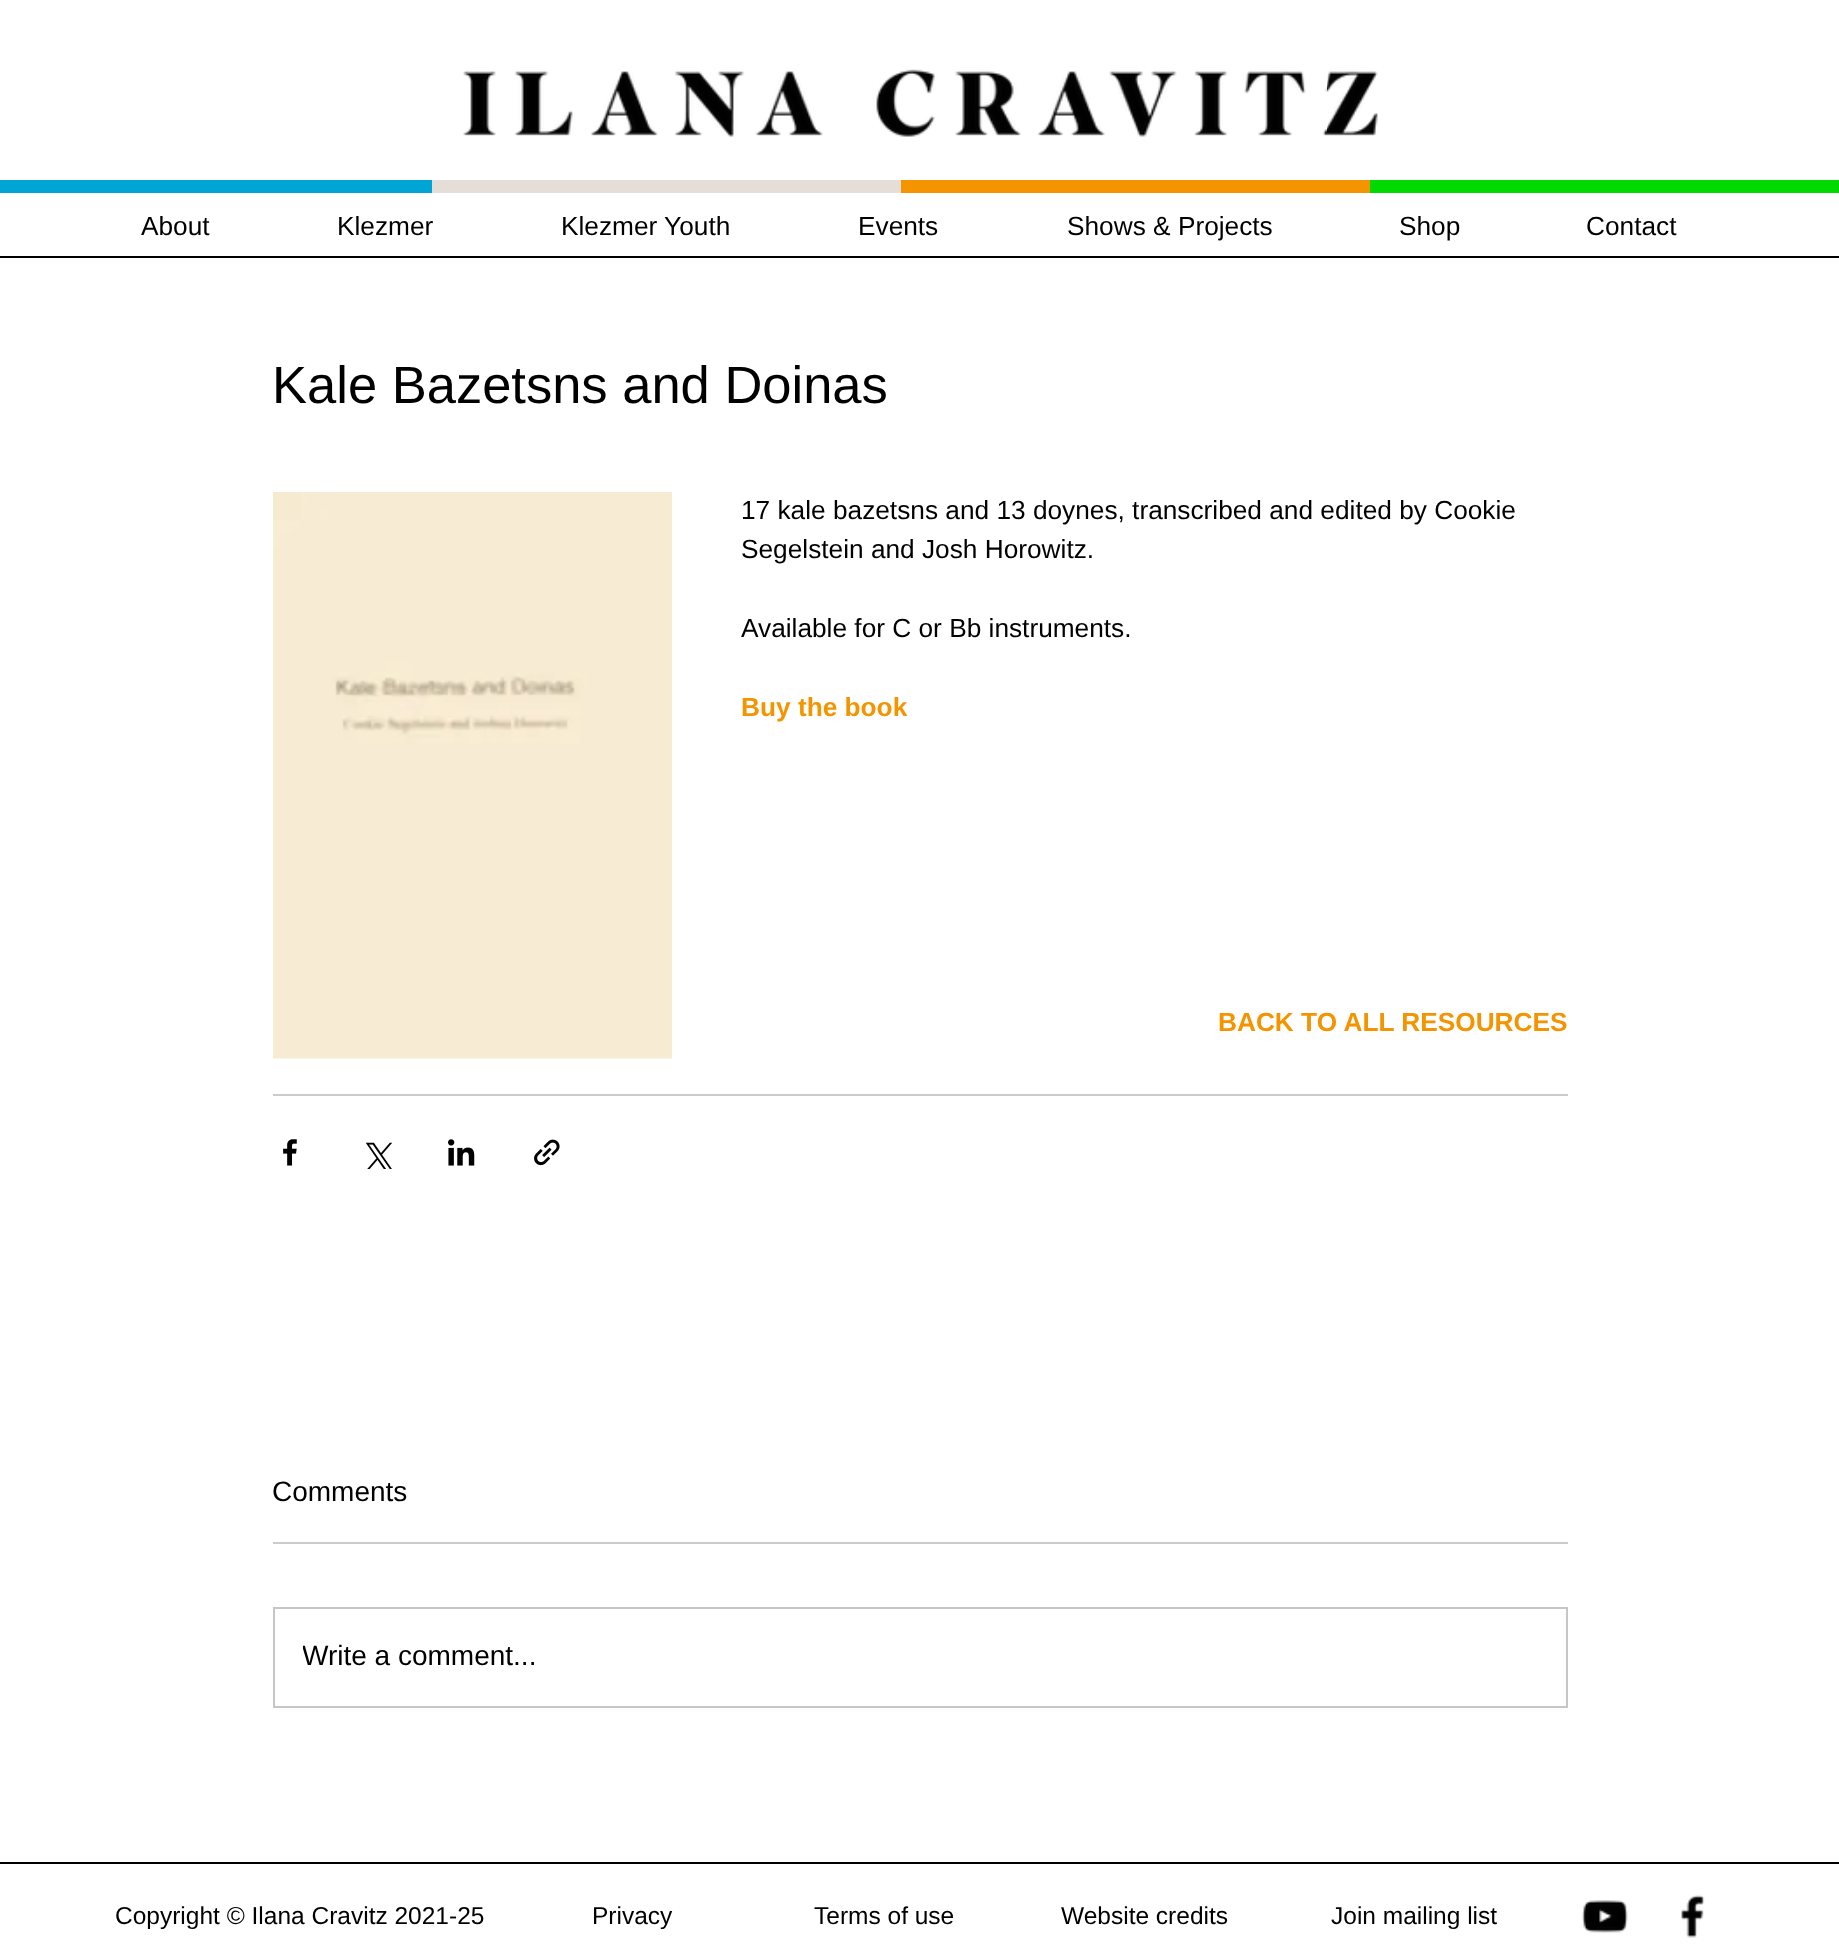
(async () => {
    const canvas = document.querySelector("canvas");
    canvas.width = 1839;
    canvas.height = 1951;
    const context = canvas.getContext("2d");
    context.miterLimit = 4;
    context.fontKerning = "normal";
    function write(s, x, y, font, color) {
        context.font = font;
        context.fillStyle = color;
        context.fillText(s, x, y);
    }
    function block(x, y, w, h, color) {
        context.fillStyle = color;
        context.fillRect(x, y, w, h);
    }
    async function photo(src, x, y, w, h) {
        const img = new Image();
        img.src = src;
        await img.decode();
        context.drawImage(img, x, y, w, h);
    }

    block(0, 0, 1839, 1951, "rgb(255, 255, 255)");
    await photo("media/1.png", 463, 69, 915, 68);
    block(0, 180, 432, 13, "rgb(0, 165, 213)");
    block(432, 180, 469, 13, "rgb(228, 221, 216)");
    block(901, 180, 469, 13, "rgb(243, 148, 0)");
    block(1370, 180, 469, 13, "rgb(0, 218, 0)");
    write("About", 141, 235, "26.25px Liberation Sans", "rgb(0, 0, 0)");
    write("Klezmer", 337, 235, "26.25px Liberation Sans", "rgb(0, 0, 0)");
    write("Klezmer Youth", 561, 235, "26.25px Liberation Sans", "rgb(0, 0, 0)");
    write("Events", 858, 235, "26.25px Liberation Sans", "rgb(0, 0, 0)");
    write("Shows & Projects", 1067, 235, "26.25px Liberation Sans", "rgb(0, 0, 0)");
    write("Shop", 1399, 235, "26.25px Liberation Sans", "rgb(0, 0, 0)");
    write("Contact", 1586, 235, "26.25px Liberation Sans", "rgb(0, 0, 0)");
    block(0, 256, 1839, 2, "rgb(0, 0, 0)");
    write("Kale Bazetsns and Doinas", 272, 403, "52.5px Liberation Sans", "rgb(0, 0, 0)");
    await photo("media/2.png", 273, 492, 399, 567);
    write("17 kale bazetsns and 13 doynes, transcribed and edited by Cookie", 741, 519, "26.25px Liberation Sans", "rgb(0, 0, 0)");
    write("Segelstein and Josh Horowitz.", 741, 558, "26.25px Liberation Sans", "rgb(0, 0, 0)");
    write("Available for C or Bb instruments.", 741, 637, "26.25px Liberation Sans", "rgb(0, 0, 0)");
    write("Buy the book", 741, 716, "bold 26.25px Liberation Sans", "rgb(243, 148, 0)");
    write("BACK TO ALL RESOURCES", 1218, 1031, "bold 26.25px Liberation Sans", "rgb(243, 148, 0)");
    block(273, 1094, 1295, 2, "rgb(204, 204, 204)");
    await photo("media/3.png", 283, 1139, 14, 27);
    await photo("media/4.png", 365, 1142, 27, 27);
    await photo("media/5.png", 448, 1139, 27, 27);
    await photo("media/6.png", 534, 1139, 26, 27);
    write("Comments", 272, 1501, "28px Liberation Sans", "rgb(0, 0, 0)");
    block(273, 1542, 1295, 2, "rgb(204, 204, 204)");
    context.strokeStyle = "rgb(198, 198, 198)";
    context.lineWidth = 2;
    context.strokeRect(274, 1608, 1293, 99);
    context.save();
    context.beginPath();
    context.rect(303, 1636, 1235, 42);
    context.clip();
    write("Write a comment...", 302, 1665, "28px Liberation Sans", "rgb(0, 0, 0)");
    context.restore();
    block(0, 1862, 1839, 2, "rgb(0, 0, 0)");
    write("Copyright © Ilana Cravitz 2021-25", 115, 1924, "24.5px Liberation Sans", "rgb(0, 0, 0)");
    write("Privacy", 592, 1924, "24.5px Liberation Sans", "rgb(0, 0, 0)");
    write("Terms of use", 814, 1924, "24.5px Liberation Sans", "rgb(0, 0, 0)");
    write("Website credits", 1061, 1924, "24.5px Liberation Sans", "rgb(0, 0, 0)");
    write("Join mailing list", 1331, 1924, "24.5px Liberation Sans", "rgb(0, 0, 0)");
    await photo("media/7.png", 1582, 1900, 46, 33);
    await photo("media/8.png", 1681, 1895, 24, 43);
})();
